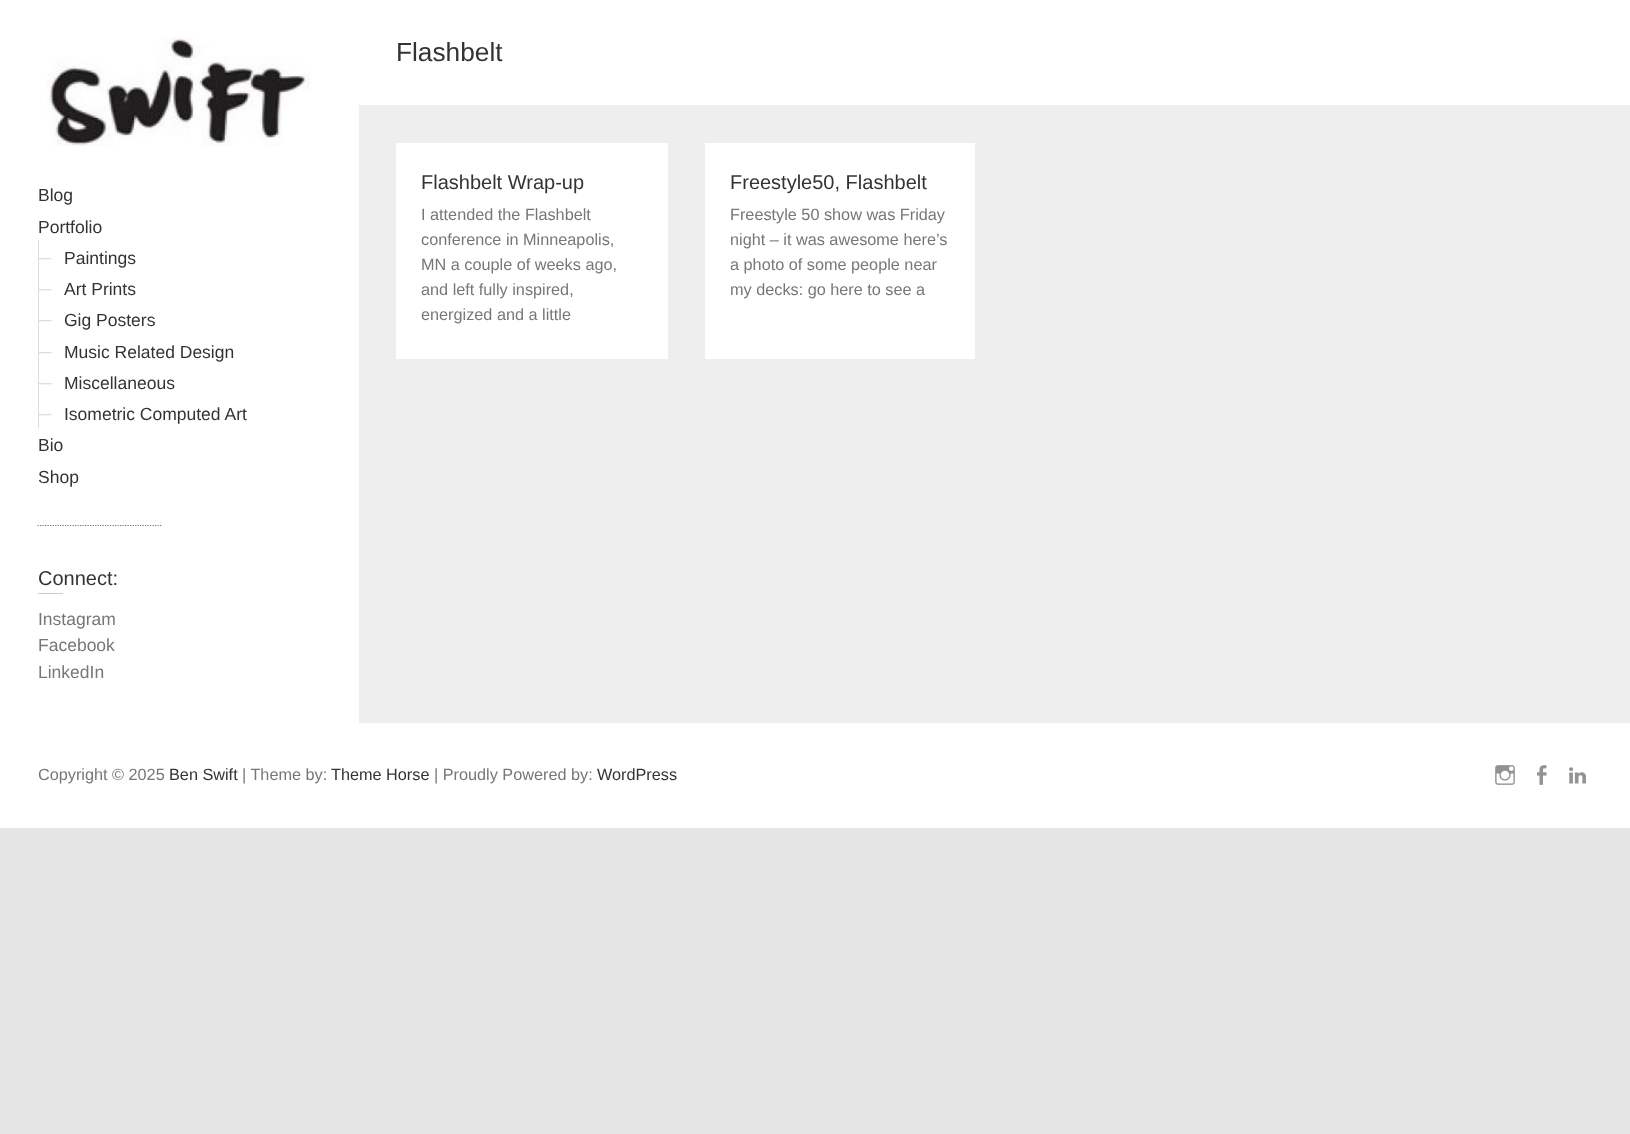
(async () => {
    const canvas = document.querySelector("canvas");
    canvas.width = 1630;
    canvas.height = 1134;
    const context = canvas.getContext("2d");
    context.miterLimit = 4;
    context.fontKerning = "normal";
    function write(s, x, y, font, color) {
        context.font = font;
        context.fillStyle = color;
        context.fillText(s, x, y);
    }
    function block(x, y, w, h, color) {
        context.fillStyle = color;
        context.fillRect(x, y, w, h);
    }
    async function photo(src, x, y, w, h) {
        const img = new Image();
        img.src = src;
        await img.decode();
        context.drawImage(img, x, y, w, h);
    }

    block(0, 0, 1630, 1134, "rgb(229, 229, 229)");
    block(359, 105, 1271, 618, "rgb(238, 238, 238)");
    block(0, 0, 359, 723, "rgb(255, 255, 255)");
    block(359, 0, 1271, 105, "rgb(255, 255, 255)");
    write("Flashbelt", 396, 61, "26.25px Liberation Sans", "rgb(51, 51, 51)");
    block(396, 143, 272, 216, "rgb(255, 255, 255)");
    write("Flashbelt Wrap-up", 421, 189, "20px Liberation Sans", "rgb(51, 51, 51)");
    write("I attended the Flashbelt", 421, 220, "16.25px Liberation Sans", "rgb(119, 119, 119)");
    write("conference in Minneapolis,", 421, 245, "16.25px Liberation Sans", "rgb(119, 119, 119)");
    write("MN a couple of weeks ago,", 421, 270, "16.25px Liberation Sans", "rgb(119, 119, 119)");
    write("and left fully inspired,", 421, 295, "16.25px Liberation Sans", "rgb(119, 119, 119)");
    write("energized and a little", 421, 320, "16.25px Liberation Sans", "rgb(119, 119, 119)");
    block(705, 143, 270, 216, "rgb(255, 255, 255)");
    write("Freestyle50, Flashbelt", 730, 189, "20px Liberation Sans", "rgb(51, 51, 51)");
    write("Freestyle 50 show was Friday", 730, 220, "16.25px Liberation Sans", "rgb(119, 119, 119)");
    write("night – it was awesome here’s", 730, 245, "16.25px Liberation Sans", "rgb(119, 119, 119)");
    write("a photo of some people near", 730, 270, "16.25px Liberation Sans", "rgb(119, 119, 119)");
    write("my decks: go here to see a", 730, 295, "16.25px Liberation Sans", "rgb(119, 119, 119)");
    await photo("media/1.png", 47, 37, 263, 109);
    write("Blog", 38, 201, "17.5px Liberation Sans", "rgb(51, 51, 51)");
    write("Portfolio", 38, 233, "17.5px Liberation Sans", "rgb(51, 51, 51)");
    block(38, 240, 1, 188, "rgb(221, 221, 221)");
    write("─", 39, 264, "17.5px Liberation Sans", "rgb(221, 221, 221)");
    write("Paintings", 64, 264, "17.5px Liberation Sans", "rgb(51, 51, 51)");
    write("─", 39, 295, "17.5px Liberation Sans", "rgb(221, 221, 221)");
    write("Art Prints", 64, 295, "17.5px Liberation Sans", "rgb(51, 51, 51)");
    write("─", 39, 326, "17.5px Liberation Sans", "rgb(221, 221, 221)");
    write("Gig Posters", 64, 326, "17.5px Liberation Sans", "rgb(51, 51, 51)");
    write("─", 39, 358, "17.5px Liberation Sans", "rgb(221, 221, 221)");
    write("Music Related Design", 64, 358, "17.5px Liberation Sans", "rgb(51, 51, 51)");
    write("─", 39, 389, "17.5px Liberation Sans", "rgb(221, 221, 221)");
    write("Miscellaneous", 64, 389, "17.5px Liberation Sans", "rgb(51, 51, 51)");
    write("─", 39, 420, "17.5px Liberation Sans", "rgb(221, 221, 221)");
    write("Isometric Computed Art", 64, 420, "17.5px Liberation Sans", "rgb(51, 51, 51)");
    write("Bio", 38, 451, "17.5px Liberation Sans", "rgb(51, 51, 51)");
    write("Shop", 38, 483, "17.5px Liberation Sans", "rgb(51, 51, 51)");
    context.beginPath();
    context.moveTo(37.5, 525.5);
    context.lineTo(162.5, 525.5);
    context.strokeStyle = "rgb(119, 119, 119)";
    context.lineWidth = 1.2;
    context.setLineDash([1.25, 1.25]);
    context.stroke();
    write("Connect:", 38, 585, "20px Liberation Sans", "rgb(51, 51, 51)");
    block(38, 593, 25, 1, "rgb(204, 204, 204)");
    write("Instagram", 38, 625, "17.5px Liberation Sans", "rgb(119, 119, 119)");
    write("Facebook", 38, 651, "17.5px Liberation Sans", "rgb(119, 119, 119)");
    write("LinkedIn", 38, 678, "17.5px Liberation Sans", "rgb(119, 119, 119)");
    block(0, 723, 1630, 105, "rgb(255, 255, 255)");
    write("Copyright © 2025", 38, 780, "16.25px Liberation Sans", "rgb(119, 119, 119)");
    write("Ben Swift", 169, 780, "16.25px Liberation Sans", "rgb(51, 51, 51)");
    write("| Theme by:", 242, 780, "16.25px Liberation Sans", "rgb(119, 119, 119)");
    write("Theme Horse", 331, 780, "16.25px Liberation Sans", "rgb(51, 51, 51)");
    write("| Proudly Powered by:", 434, 780, "16.25px Liberation Sans", "rgb(119, 119, 119)");
    write("WordPress", 597, 780, "16.25px Liberation Sans", "rgb(51, 51, 51)");
    await photo("media/2.png", 1495, 765, 20, 20);
    await photo("media/3.png", 1537, 765, 10, 20);
    await photo("media/4.png", 1569, 767, 17, 17);
})();
